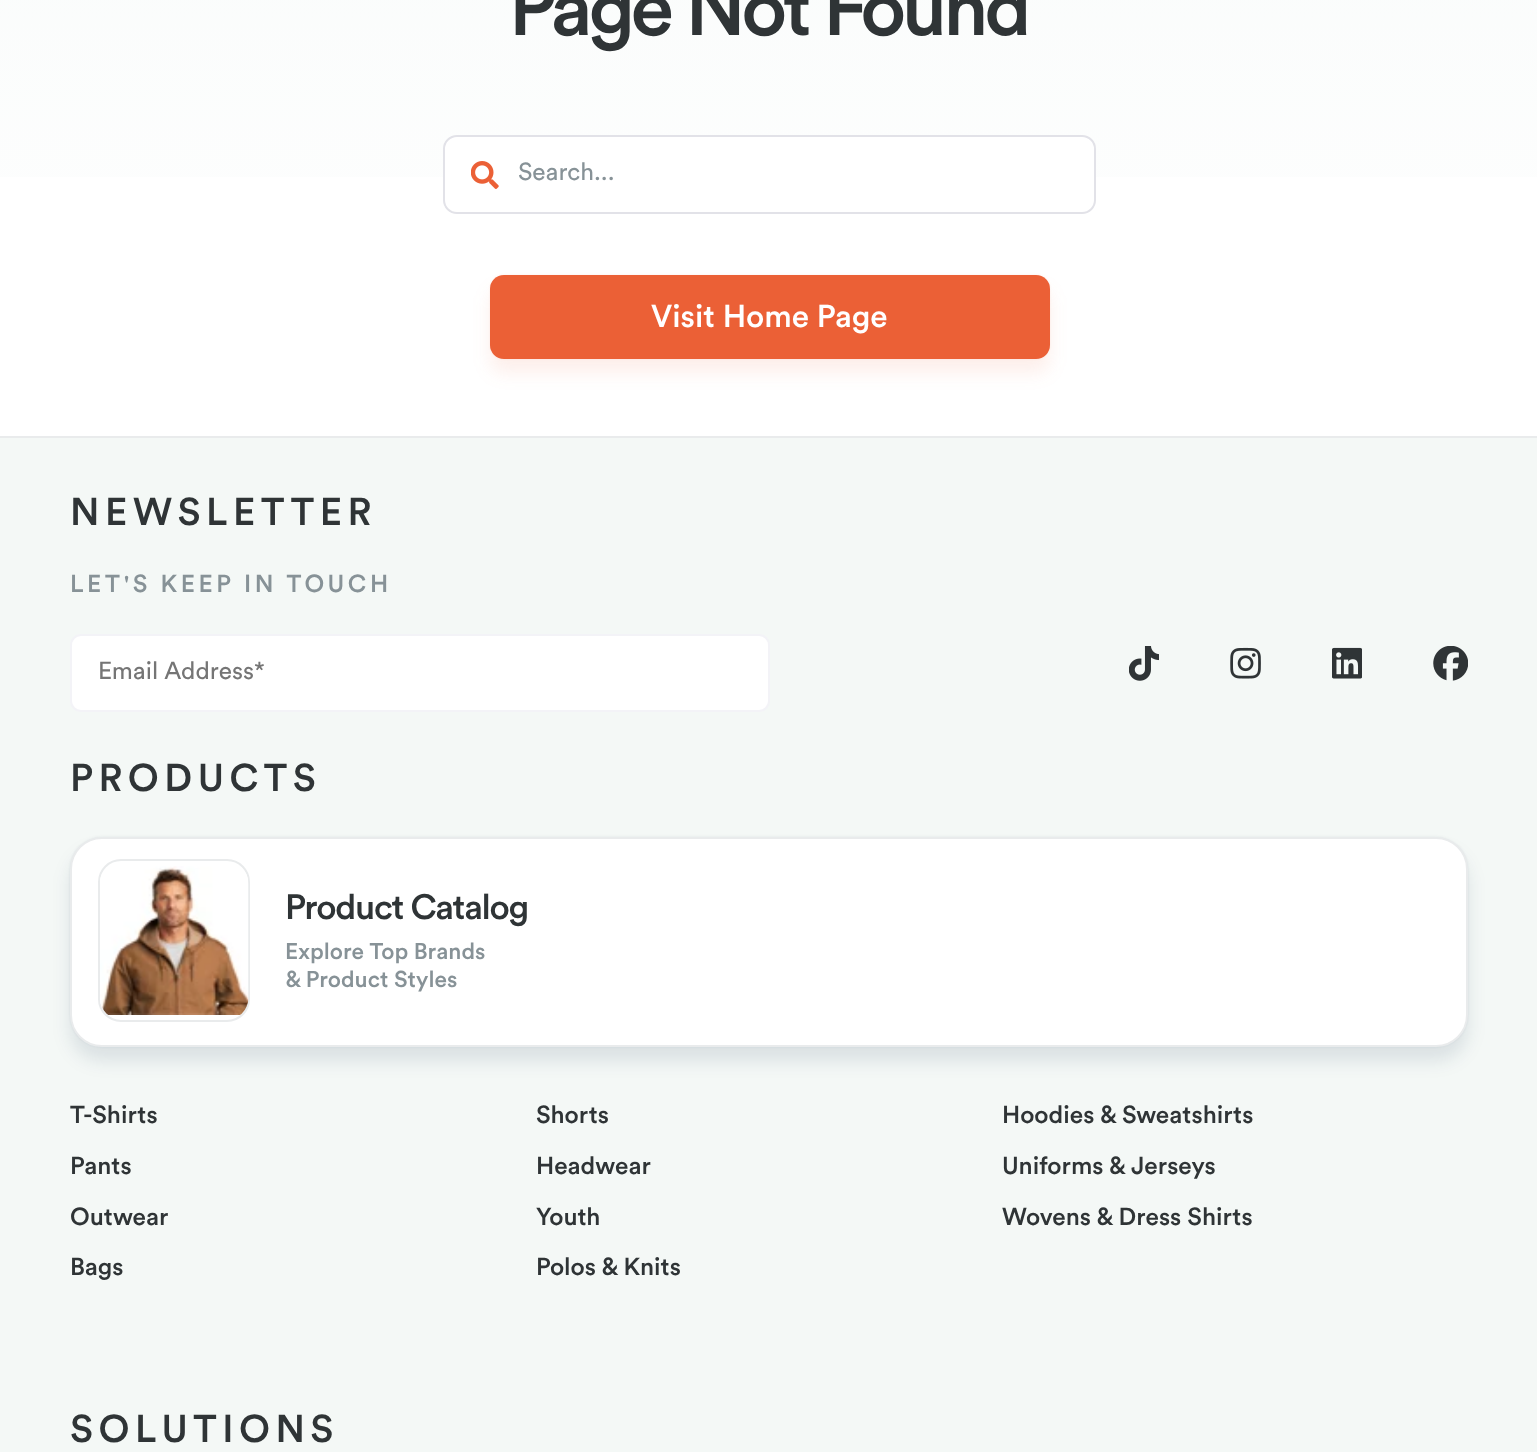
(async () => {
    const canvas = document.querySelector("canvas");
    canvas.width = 1537;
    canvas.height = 1452;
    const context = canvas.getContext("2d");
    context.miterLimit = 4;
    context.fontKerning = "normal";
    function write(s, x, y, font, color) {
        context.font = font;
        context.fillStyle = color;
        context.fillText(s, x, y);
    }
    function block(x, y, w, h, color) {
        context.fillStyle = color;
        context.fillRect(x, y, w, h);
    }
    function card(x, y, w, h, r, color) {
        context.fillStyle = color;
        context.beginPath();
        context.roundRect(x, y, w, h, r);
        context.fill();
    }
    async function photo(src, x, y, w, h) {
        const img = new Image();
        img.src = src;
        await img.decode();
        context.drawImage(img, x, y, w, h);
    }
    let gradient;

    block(0, 0, 1537, 1452, "rgb(255, 255, 255)");
    gradient = context.createLinearGradient(769, 436, 769, -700);
    gradient.addColorStop(0, "rgb(255, 255, 255)");
    gradient.addColorStop(0.73, "rgb(247, 250, 249)");
    gradient.addColorStop(1, "rgb(245, 249, 247)");
    context.fillStyle = gradient;
    context.fillRect(0, 0, 1537, 177);
    context.letterSpacing = "-4px";
    write("Page Not Found", 509, 35, "500 78.75px Circular", "rgb(47, 52, 54)");
    context.fillStyle = "rgb(255, 255, 255)";
    context.beginPath();
    context.roundRect(444, 136, 651, 77, 13);
    context.fill();
    context.strokeStyle = "rgb(226, 226, 232)";
    context.lineWidth = 2;
    context.stroke();
    await photo("media/1.png", 471, 161, 28, 28);
    context.letterSpacing = "0px";
    write("Search...", 518, 180, "24.5px Circular", "rgb(135, 146, 151)");
    context.fillStyle = "rgba(235, 96, 54, 0.1)";
    context.filter = "blur(1px)";
    context.beginPath();
    context.roundRect(490, 275, 560, 84, 14);
    context.fill();
    context.filter = "none";
    context.filter = "blur(9px)";
    context.beginPath();
    context.roundRect(490, 289, 560, 84, 14);
    context.fill();
    context.filter = "none";
    card(490, 275, 560, 84, 14, "rgb(235, 96, 54)");
    write("Visit Home Page", 651, 327, "500 31.5px Circular", "rgb(255, 255, 255)");
    block(0, 438, 1537, 1014, "rgb(244, 248, 246)");
    block(0, 436, 1537, 2, "rgb(233, 235, 236)");
    context.letterSpacing = "5.5px";
    write("NEWSLETTER", 70, 525, "500 38.5px Circular", "rgb(47, 52, 54)");
    context.letterSpacing = "3.5px";
    write("LET'S KEEP IN TOUCH", 70, 592, "500 24.5px Circular", "rgb(135, 146, 151)");
    context.fillStyle = "rgb(255, 255, 255)";
    context.beginPath();
    context.roundRect(71, 635, 698, 76, 10);
    context.fill();
    context.strokeStyle = "rgb(243, 243, 247)";
    context.stroke();
    context.letterSpacing = "0px";
    write("Email Address*", 98, 679, "24.5px Circular", "rgb(117, 117, 117)");
    await photo("media/2.png", 1129, 646, 30, 35);
    await photo("media/3.png", 1230, 647, 31, 32);
    await photo("media/4.png", 1332, 647, 30, 32);
    await photo("media/5.png", 1433, 646, 35, 35);
    context.letterSpacing = "5.5px";
    write("PRODUCTS", 70, 791, "500 38.5px Circular", "rgb(47, 52, 54)");
    context.fillStyle = "rgba(2, 32, 71, 0.08)";
    context.filter = "blur(1px)";
    context.beginPath();
    context.roundRect(70, 837, 1398, 210, 32);
    context.fill();
    context.filter = "none";
    context.fillStyle = "rgba(2, 32, 71, 0.1)";
    context.filter = "blur(9px)";
    context.beginPath();
    context.roundRect(70, 851, 1398, 210, 32);
    context.fill();
    context.filter = "none";
    context.fillStyle = "rgb(255, 255, 255)";
    context.beginPath();
    context.roundRect(71, 838, 1396, 208, 31);
    context.fill();
    context.strokeStyle = "rgb(233, 235, 236)";
    context.stroke();
    context.beginPath();
    context.roundRect(99, 860, 150, 161, 22);
    context.stroke();
    await photo("media/6.png", 100, 866, 149, 149);
    context.letterSpacing = "-1.25px";
    write("Product Catalog", 285, 919, "500 35px Circular", "rgb(47, 52, 54)");
    context.letterSpacing = "0px";
    write("Explore Top Brands", 285, 959, "500 22.75px Circular", "rgb(135, 146, 151)");
    write("& Product Styles", 285, 987, "500 22.75px Circular", "rgb(135, 146, 151)");
    write("T-Shirts", 70, 1123, "500 24.5px Circular", "rgb(47, 52, 54)");
    write("Pants", 70, 1174, "500 24.5px Circular", "rgb(47, 52, 54)");
    write("Outwear", 70, 1225, "500 24.5px Circular", "rgb(47, 52, 54)");
    write("Bags", 70, 1275, "500 24.5px Circular", "rgb(47, 52, 54)");
    write("Shorts", 536, 1123, "500 24.5px Circular", "rgb(47, 52, 54)");
    write("Headwear", 536, 1174, "500 24.5px Circular", "rgb(47, 52, 54)");
    write("Youth", 536, 1225, "500 24.5px Circular", "rgb(47, 52, 54)");
    write("Polos & Knits", 536, 1275, "500 24.5px Circular", "rgb(47, 52, 54)");
    write("Hoodies & Sweatshirts", 1002, 1123, "500 24.5px Circular", "rgb(47, 52, 54)");
    write("Uniforms & Jerseys", 1002, 1174, "500 24.5px Circular", "rgb(47, 52, 54)");
    write("Wovens & Dress Shirts", 1002, 1225, "500 24.5px Circular", "rgb(47, 52, 54)");
    context.letterSpacing = "5.5px";
    write("SOLUTIONS", 70, 1442, "500 38.5px Circular", "rgb(47, 52, 54)");
})();
